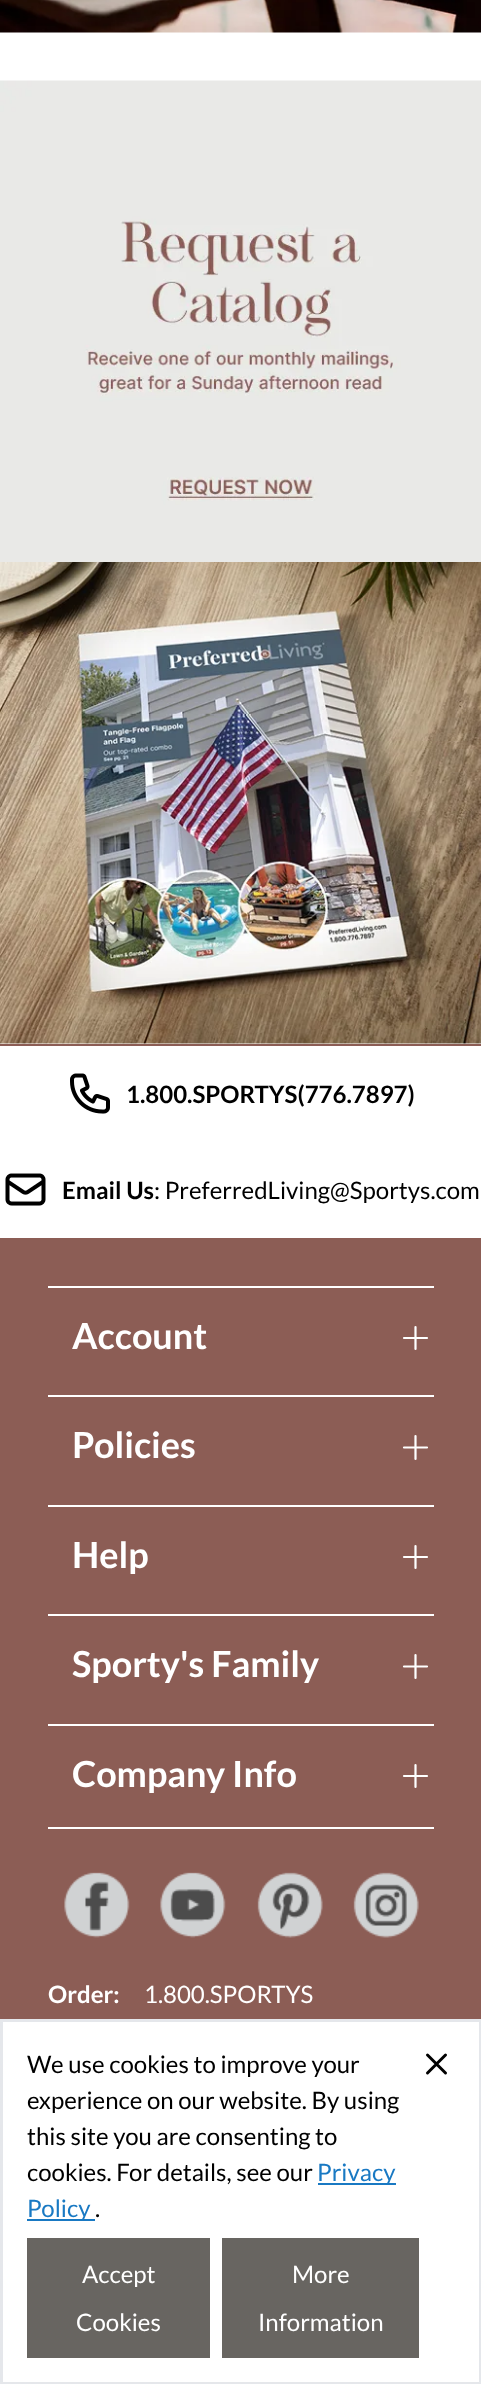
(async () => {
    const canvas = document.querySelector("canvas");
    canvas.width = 481;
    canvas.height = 2384;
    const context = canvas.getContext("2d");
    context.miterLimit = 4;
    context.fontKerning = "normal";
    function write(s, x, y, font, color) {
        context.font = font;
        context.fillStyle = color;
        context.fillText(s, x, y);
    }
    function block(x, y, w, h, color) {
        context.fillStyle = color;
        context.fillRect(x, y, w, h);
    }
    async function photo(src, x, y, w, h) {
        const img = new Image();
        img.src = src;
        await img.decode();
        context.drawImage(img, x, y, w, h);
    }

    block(0, 0, 481, 2384, "rgb(255, 255, 255)");
    await photo("media/1.png", 0, 0, 481, 33);
    await photo("media/2.png", 0, 80, 481, 482);
    await photo("media/3.png", 0, 562, 481, 482);
    block(0, 1044, 481, 2, "rgb(140, 93, 85)");
    await photo("media/4.png", 70, 1073, 40, 41);
    write("1.800.SPORTYS(776.7897)", 126, 1103, "bold 24px Lato", "rgb(0, 0, 0)");
    await photo("media/5.png", 5, 1173, 41, 33);
    write("Email Us", 62, 1199, "bold 24px Lato", "rgb(0, 0, 0)");
    write(": PreferredLiving@Sportys.com", 154, 1199, "24px Lato", "rgb(0, 0, 0)");
    block(0, 1238, 481, 781, "rgb(140, 93, 85)");
    block(48, 1286, 386, 2, "rgb(255, 255, 255)");
    write("Account", 72, 1349, "bold 36px Lato", "rgb(255, 255, 255)");
    context.beginPath();
    context.moveTo(415.5, 1327);
    context.lineTo(415.5, 1349);
    context.moveTo(427, 1338);
    context.lineTo(404, 1338);
    context.strokeStyle = "rgb(255, 255, 255)";
    context.lineWidth = 2.2;
    context.lineCap = "round";
    context.lineJoin = "round";
    context.stroke();
    block(48, 1395, 386, 2, "rgb(255, 255, 255)");
    write("Policies", 72, 1458, "bold 36px Lato", "rgb(255, 255, 255)");
    context.beginPath();
    context.moveTo(415.5, 1436);
    context.lineTo(415.5, 1459);
    context.moveTo(427, 1447.5);
    context.lineTo(404, 1447.5);
    context.stroke();
    block(48, 1505, 386, 2, "rgb(255, 255, 255)");
    write("Help", 72, 1568, "bold 36px Lato", "rgb(255, 255, 255)");
    context.beginPath();
    context.moveTo(415.5, 1546);
    context.lineTo(415.5, 1568);
    context.moveTo(427, 1557);
    context.lineTo(404, 1557);
    context.stroke();
    block(48, 1614, 386, 2, "rgb(255, 255, 255)");
    write("Sporty's Family", 72, 1677, "bold 36px Lato", "rgb(255, 255, 255)");
    context.beginPath();
    context.moveTo(415.5, 1655);
    context.lineTo(415.5, 1678);
    context.moveTo(427, 1666.5);
    context.lineTo(404, 1666.5);
    context.stroke();
    block(48, 1827, 386, 2, "rgb(255, 255, 255)");
    block(48, 1724, 386, 2, "rgb(255, 255, 255)");
    write("Company Info", 72, 1787, "bold 36px Lato", "rgb(255, 255, 255)");
    context.beginPath();
    context.moveTo(415.5, 1765);
    context.lineTo(415.5, 1787);
    context.moveTo(427, 1776);
    context.lineTo(404, 1776);
    context.stroke();
    await photo("media/6.png", 64, 1872, 66, 66);
    await photo("media/7.png", 160, 1872, 66, 66);
    await photo("media/8.png", 257, 1872, 66, 66);
    await photo("media/9.png", 353, 1872, 66, 66);
    write("Order:", 48, 2003, "bold 24px Lato", "rgb(255, 255, 255)");
    write("1.800.SPORTYS", 144, 2003, "24px Lato", "rgb(255, 255, 255)");
    context.strokeStyle = "rgb(229, 231, 235)";
    context.lineWidth = 3;
    context.lineJoin = "miter";
    context.strokeRect(1.5, 2020.5, 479, 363);
    write("We use cookies to improve your", 27, 2073, "24px Lato", "rgb(0, 0, 0)");
    write("experience on our website. By using", 27, 2109, "24px Lato", "rgb(0, 0, 0)");
    write("this site you are consenting to", 27, 2145, "24px Lato", "rgb(0, 0, 0)");
    write("cookies. For details, see our", 27, 2181, "24px Lato", "rgb(0, 0, 0)");
    block(318, 2183, 78, 2, "rgb(25, 121, 195)");
    write("Privacy", 317, 2181, "24px Lato", "rgb(25, 121, 195)");
    block(27, 2219, 68, 2, "rgb(25, 121, 195)");
    write("Policy", 27, 2217, "24px Lato", "rgb(25, 121, 195)");
    write(".", 95, 2217, "24px Lato", "rgb(0, 0, 0)");
    block(27, 2238, 183, 120, "rgb(104, 101, 97)");
    write("Accept", 82, 2283, "24px Lato", "rgb(255, 255, 255)");
    write("Cookies", 76, 2331, "24px Lato", "rgb(255, 255, 255)");
    block(222, 2238, 197, 120, "rgb(104, 101, 97)");
    write("More", 292, 2283, "24px Lato", "rgb(255, 255, 255)");
    write("Information", 258, 2331, "24px Lato", "rgb(255, 255, 255)");
    context.beginPath();
    context.moveTo(427.5, 2073);
    context.lineTo(445.5, 2055);
    context.moveTo(427.5, 2055);
    context.lineTo(445.5, 2073);
    context.strokeStyle = "rgb(0, 0, 0)";
    context.lineJoin = "round";
    context.stroke();
})();
